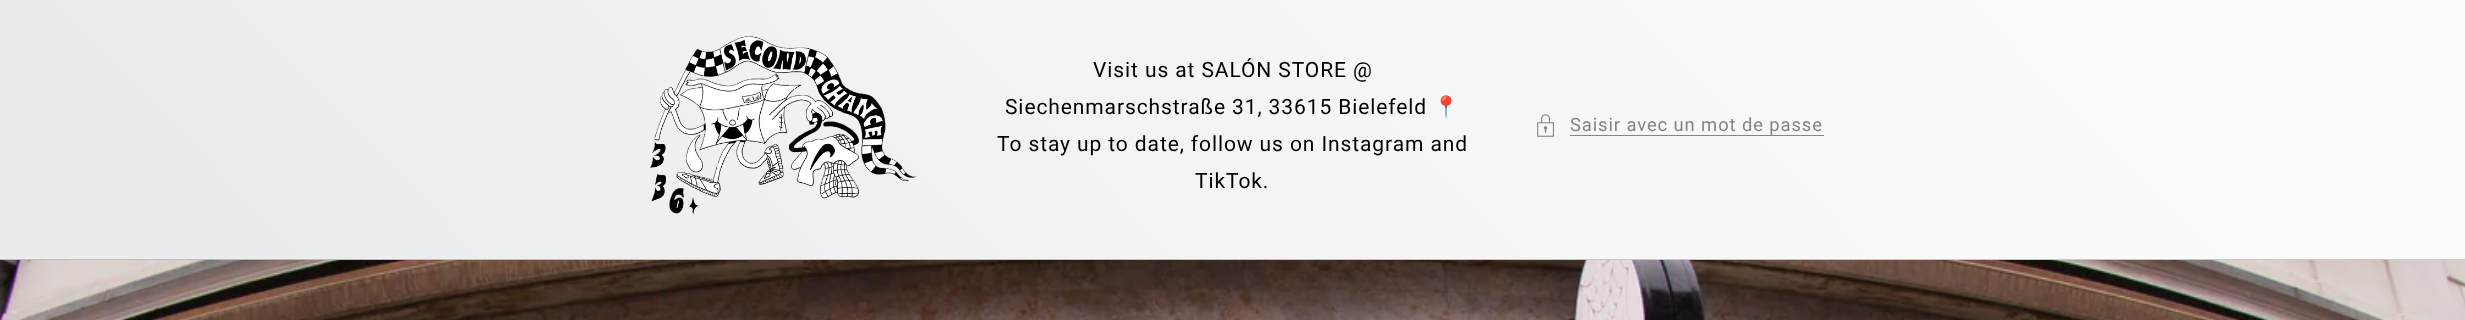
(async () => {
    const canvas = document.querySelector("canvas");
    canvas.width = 2465;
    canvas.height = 320;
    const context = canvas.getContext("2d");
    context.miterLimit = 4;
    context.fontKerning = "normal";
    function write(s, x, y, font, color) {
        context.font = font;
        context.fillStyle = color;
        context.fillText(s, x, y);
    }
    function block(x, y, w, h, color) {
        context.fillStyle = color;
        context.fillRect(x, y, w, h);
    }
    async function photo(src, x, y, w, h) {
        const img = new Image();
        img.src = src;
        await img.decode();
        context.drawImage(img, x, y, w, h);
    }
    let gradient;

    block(0, 0, 2465, 320, "rgb(255, 255, 255)");
    gradient = context.createLinearGradient(515, 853, 1950, -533);
    gradient.addColorStop(0.13, "rgb(235, 236, 237)");
    gradient.addColorStop(0.86, "rgb(252, 252, 252)");
    context.fillStyle = gradient;
    context.fillRect(0, 0, 2465, 259);
    gradient = context.createLinearGradient(515, 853, 1950, -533);
    gradient.addColorStop(0.13, "rgb(188, 189, 190)");
    gradient.addColorStop(0.86, "rgb(202, 202, 202)");
    context.fillStyle = gradient;
    context.fillRect(0, 259, 2465, 1);
    await photo("media/1.png", 650, 36, 267, 179);
    context.letterSpacing = "0.9px";
    write("Visit us at SALÓN STORE @", 1093, 77, "21px Roboto", "rgb(0, 0, 0)");
    write("Siechenmarschstraße 31, 33615 Bielefeld", 1005, 114, "21px Roboto", "rgb(0, 0, 0)");
    write("📍", 1433, 114, "21px Noto Color Emoji", "rgb(0, 0, 0)");
    write("To stay up to date, follow us on Instagram and", 997, 151, "21px Roboto", "rgb(0, 0, 0)");
    write("TikTok.", 1195, 188, "21px Roboto", "rgb(0, 0, 0)");
    await photo("media/2.png", 1537, 114, 17, 23);
    write("Saisir avec un mot de passe", 1570, 131, "18.4px Roboto", "rgb(133, 133, 133)");
    block(1570, 135, 254, 1, "rgb(133, 133, 133)");
    await photo("media/3.png", 0, 260, 2465, 60);
})();
